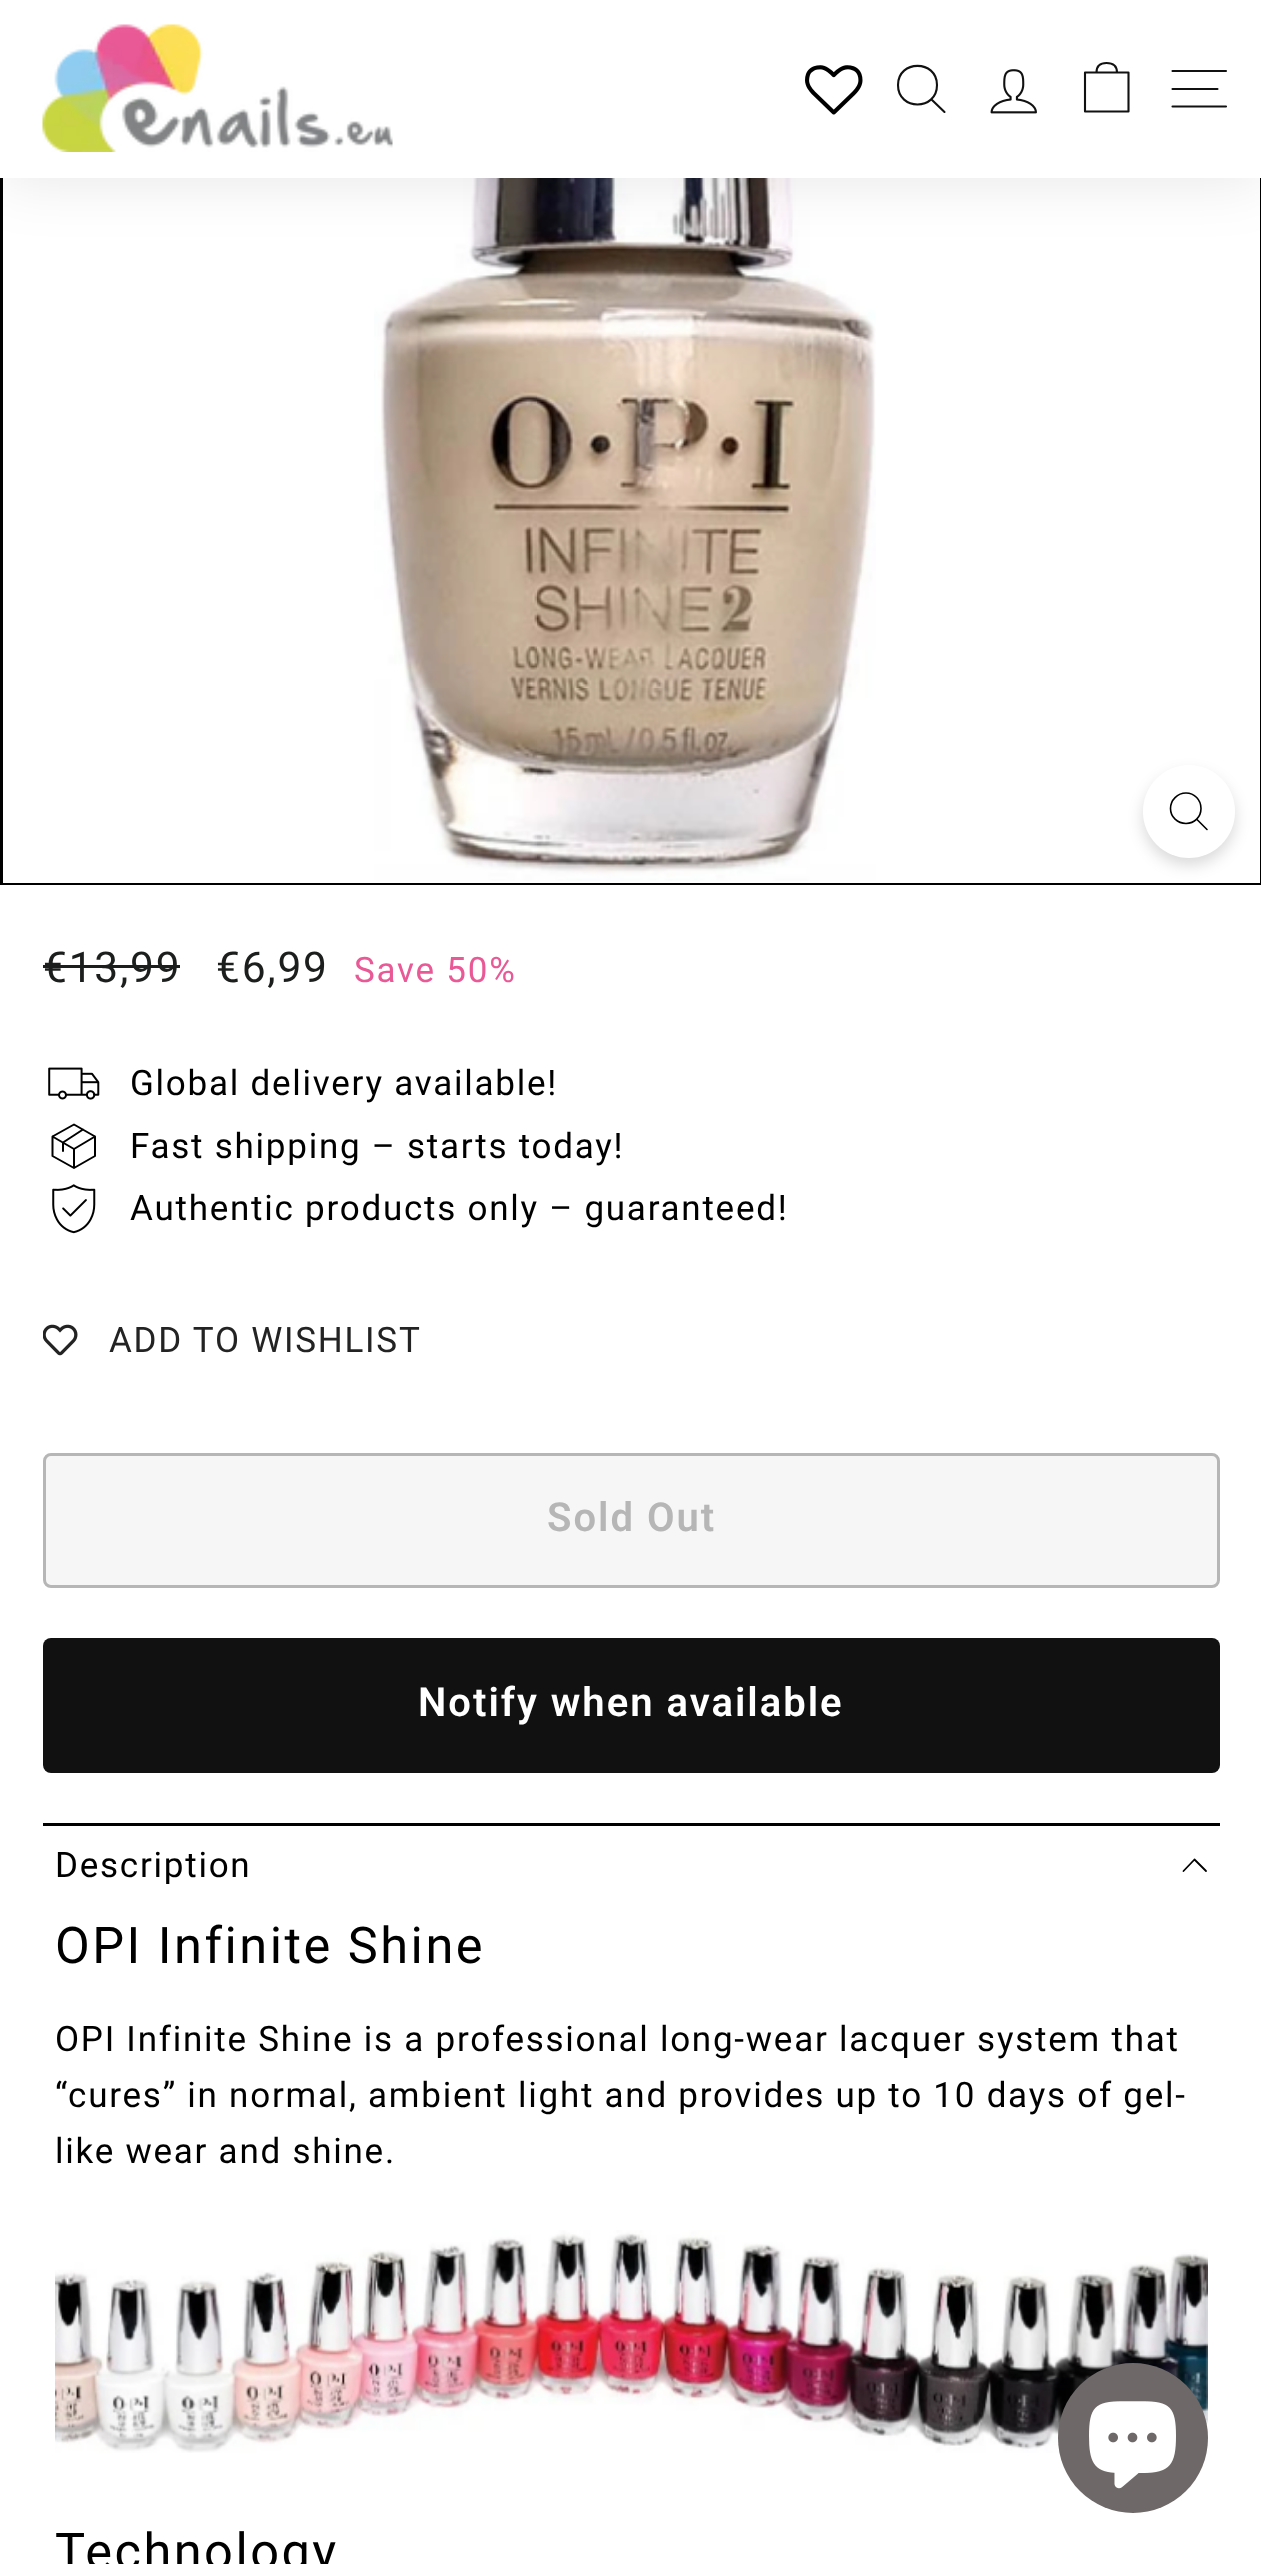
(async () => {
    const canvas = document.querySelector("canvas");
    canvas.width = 1261;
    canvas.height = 2564;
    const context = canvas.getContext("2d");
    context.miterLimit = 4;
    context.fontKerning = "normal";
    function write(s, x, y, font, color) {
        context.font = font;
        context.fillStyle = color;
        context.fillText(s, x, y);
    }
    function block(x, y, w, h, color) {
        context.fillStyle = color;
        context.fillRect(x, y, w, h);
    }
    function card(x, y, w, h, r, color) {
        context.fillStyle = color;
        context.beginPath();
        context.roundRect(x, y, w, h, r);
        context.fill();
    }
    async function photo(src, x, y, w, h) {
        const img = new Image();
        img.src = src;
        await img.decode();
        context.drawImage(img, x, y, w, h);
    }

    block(0, 0, 1261, 2564, "rgb(255, 255, 255)");
    context.strokeStyle = "rgb(0, 0, 0)";
    context.lineWidth = 3;
    context.strokeRect(1.5, -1.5, 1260, 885);
    await photo("media/4.png", 374, 178, 502, 703);
    context.fillStyle = "rgba(0, 0, 0, 0.1)";
    context.filter = "blur(31px)";
    context.beginPath();
    context.rect(0, 0, 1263, 178);
    context.fill();
    context.filter = "none";
    block(0, 0, 1261, 178, "rgb(255, 255, 255)");
    await photo("media/1.png", 42, 24, 351, 128);
    await photo("media/2.png", 805, 65, 58, 50);
    context.beginPath();
    context.moveTo(937, 85);
    context.bezierCurveTo(937, 111, 898, 111, 898, 85);
    context.bezierCurveTo(898, 59.5, 937, 59.5, 937, 85);
    context.closePath();
    context.moveTo(944.5, 112);
    context.lineTo(931.5, 99.5);
    context.strokeStyle = "rgb(17, 17, 17)";
    context.lineWidth = 2.1;
    context.lineCap = "round";
    context.lineJoin = "round";
    context.stroke();
    await photo("media/3.png", 990, 69, 47, 45);
    context.beginPath();
    context.moveTo(1096.5, 72.5);
    context.bezierCurveTo(1096.5, 65, 1101, 63, 1106.5, 63);
    context.bezierCurveTo(1112, 63, 1117, 65, 1117, 72.5);
    context.moveTo(1085, 72.5);
    context.lineTo(1128.5, 72.5);
    context.lineTo(1128.5, 111.5);
    context.lineTo(1085, 111.5);
    context.closePath();
    context.stroke();
    context.beginPath();
    context.moveTo(1172.5, 71);
    context.lineTo(1226, 71);
    context.moveTo(1172.5, 89);
    context.lineTo(1217.5, 89);
    context.moveTo(1172.5, 106.5);
    context.lineTo(1226, 106.5);
    context.stroke();
    block(3, 882, 1257, 1, "rgb(255, 255, 255)");
    context.fillStyle = "rgba(0, 0, 0, 0.15)";
    context.filter = "blur(7.5px)";
    context.beginPath();
    context.roundRect(1143, 773, 92, 92, 46);
    context.fill();
    context.filter = "none";
    card(1143, 765, 92, 93, 46, "rgb(255, 255, 255)");
    context.beginPath();
    context.moveTo(1201, 808.5);
    context.bezierCurveTo(1201, 817, 1194.5, 823.5, 1186, 823.5);
    context.bezierCurveTo(1177.5, 823.5, 1170.5, 817, 1170.5, 808.5);
    context.bezierCurveTo(1170.5, 800, 1177.5, 793, 1186, 793);
    context.bezierCurveTo(1194.5, 793, 1201, 800, 1201, 808.5);
    context.closePath();
    context.moveTo(1207, 829.5);
    context.lineTo(1197, 819.5);
    context.strokeStyle = "rgb(0, 0, 0)";
    context.lineWidth = 1.6;
    context.stroke();
    context.letterSpacing = "1.75px";
    write("€13,99", 43, 982, "42.5px Roboto", "rgb(28, 29, 29)");
    block(43, 965, 137, 3, "rgb(28, 29, 29)");
    write("€6,99", 216, 982, "42.5px Roboto", "rgb(28, 29, 29)");
    write("Save 50%", 354, 982, "35px Roboto", "rgb(233, 89, 150)");
    await photo("media/5.png", 48, 1067, 52, 33);
    write("Global delivery available!", 130, 1095, "35px Roboto", "rgb(0, 0, 0)");
    context.beginPath();
    context.moveTo(74, 1168);
    context.lineTo(52.5, 1156);
    context.lineTo(52.5, 1136.5);
    context.lineTo(74, 1124.5);
    context.lineTo(95, 1136.5);
    context.lineTo(95, 1156);
    context.closePath();
    context.moveTo(74, 1168);
    context.lineTo(74, 1149);
    context.lineTo(95, 1136.5);
    context.moveTo(74, 1149);
    context.lineTo(52.5, 1136.5);
    context.moveTo(83, 1129.5);
    context.lineTo(63, 1142.5);
    context.lineTo(63, 1151);
    context.lineWidth = 2;
    context.stroke();
    write("Fast shipping – starts today!", 130, 1158, "35px Roboto", "rgb(0, 0, 0)");
    await photo("media/6.png", 52, 1184, 44, 50);
    write("Authentic products only – guaranteed!", 130, 1220, "35px Roboto", "rgb(0, 0, 0)");
    await photo("media/7.png", 43, 1324, 35, 32);
    write("ADD TO WISHLIST", 109, 1352, "35px Roboto", "rgb(35, 35, 35)");
    context.fillStyle = "rgb(246, 246, 246)";
    context.beginPath();
    context.roundRect(44.5, 1454.5, 1174, 132, 6.5);
    context.fill();
    context.strokeStyle = "rgb(182, 182, 182)";
    context.lineWidth = 3;
    context.lineJoin = "miter";
    context.stroke();
    context.letterSpacing = "2px";
    write("Sold Out", 547, 1531, "600 40px Roboto", "rgb(182, 182, 182)");
    card(43, 1638, 1177, 135, 8, "rgb(17, 17, 17)");
    write("Notify when available", 418, 1716, "600 40px Roboto", "rgb(255, 255, 255)");
    block(43, 1823, 1177, 3, "rgb(0, 0, 0)");
    context.letterSpacing = "1.75px";
    write("Description", 55, 1877, "35px Roboto", "rgb(0, 0, 0)");
    context.beginPath();
    context.moveTo(1206, 1871);
    context.lineTo(1194.5, 1859.5);
    context.lineTo(1183.5, 1871);
    context.strokeStyle = "rgb(0, 0, 0)";
    context.lineWidth = 1.8;
    context.lineJoin = "round";
    context.stroke();
    context.letterSpacing = "2.5px";
    write("OPI Infinite Shine", 55, 1963, "50.5px Roboto", "rgb(0, 0, 0)");
    context.letterSpacing = "1.75px";
    write("OPI Infinite Shine is a professional long-wear lacquer system that", 55, 2051, "35px Roboto", "rgb(0, 0, 0)");
    write("“cures” in normal, ambient light and provides up to 10 days of gel-", 55, 2107, "35px Roboto", "rgb(0, 0, 0)");
    write("like wear and shine.", 55, 2163, "35px Roboto", "rgb(0, 0, 0)");
    await photo("media/8.png", 55, 2230, 1153, 223);
    context.letterSpacing = "2.5px";
    write("Technology", 55, 2569, "50.5px Roboto", "rgb(0, 0, 0)");
    context.fillStyle = "rgb(110, 104, 104)";
    context.beginPath();
    context.arc(1133, 2438, 75, 0, Math.PI * 2);
    context.fill();
    await photo("media/9.png", 1089, 2401, 87, 88);
})();
